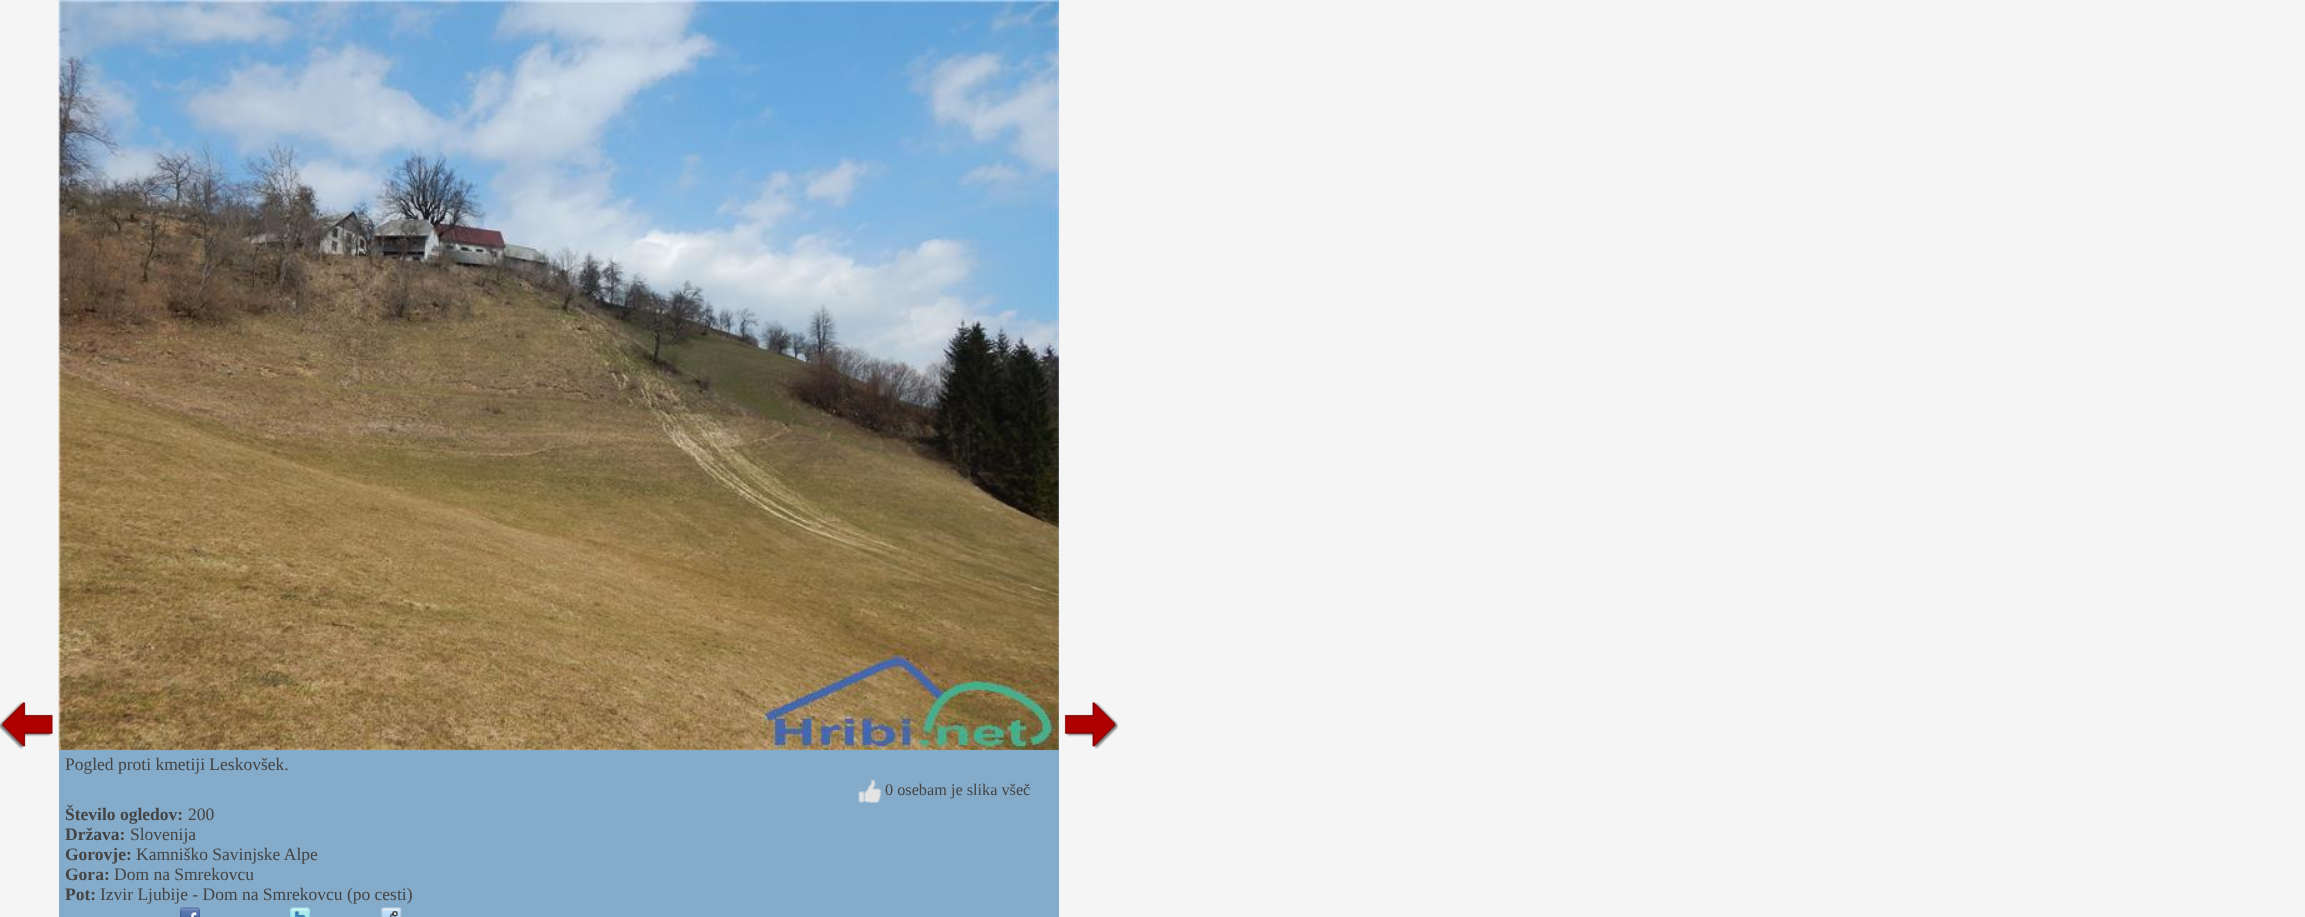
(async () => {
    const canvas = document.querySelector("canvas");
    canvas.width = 2305;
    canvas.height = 917;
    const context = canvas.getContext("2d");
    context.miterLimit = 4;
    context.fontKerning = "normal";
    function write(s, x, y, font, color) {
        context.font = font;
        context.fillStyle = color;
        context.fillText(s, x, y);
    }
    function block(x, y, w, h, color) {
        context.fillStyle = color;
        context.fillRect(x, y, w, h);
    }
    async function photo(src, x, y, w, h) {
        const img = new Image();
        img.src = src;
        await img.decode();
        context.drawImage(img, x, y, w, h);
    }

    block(0, 0, 2305, 917, "rgb(245, 245, 245)");
    await photo("media/1.png", 0, 702, 53, 47);
    await photo("media/2.png", 1064, 702, 54, 47);
    block(59, 0, 1000, 917, "rgb(133, 171, 202)");
    await photo("media/3.png", 58, 0, 1001, 750);
    write("Pogled proti kmetiji Leskovšek.", 65, 770, "17.5px Liberation Serif", "rgb(68, 68, 68)");
    await photo("media/4.png", 858, 780, 24, 23);
    write("0 osebam je slika všeč", 885, 795, "16.25px Liberation Serif", "rgb(68, 68, 68)");
    write("Število ogledov:", 65, 820, "bold 17.5px Liberation Serif", "rgb(68, 68, 68)");
    write("200", 188, 820, "17.5px Liberation Serif", "rgb(68, 68, 68)");
    write("Država:", 65, 840, "bold 17.5px Liberation Serif", "rgb(68, 68, 68)");
    write("Slovenija", 130, 840, "17.5px Liberation Serif", "rgb(68, 68, 68)");
    write("Gorovje:", 65, 860, "bold 17.5px Liberation Serif", "rgb(68, 68, 68)");
    write("Kamniško Savinjske Alpe", 136, 860, "17.5px Liberation Serif", "rgb(68, 68, 68)");
    write("Gora:", 65, 880, "bold 17.5px Liberation Serif", "rgb(68, 68, 68)");
    write("Dom na Smrekovcu", 114, 880, "17.5px Liberation Serif", "rgb(68, 68, 68)");
    write("Pot:", 65, 900, "bold 17.5px Liberation Serif", "rgb(68, 68, 68)");
    write("Izvir Ljubije - Dom na Smrekovcu (po cesti)", 100, 900, "17.5px Liberation Serif", "rgb(68, 68, 68)");
    await photo("media/5.png", 180, 907, 20, 10);
    await photo("media/6.png", 290, 907, 20, 10);
    await photo("media/7.png", 381, 907, 21, 10);
})();
